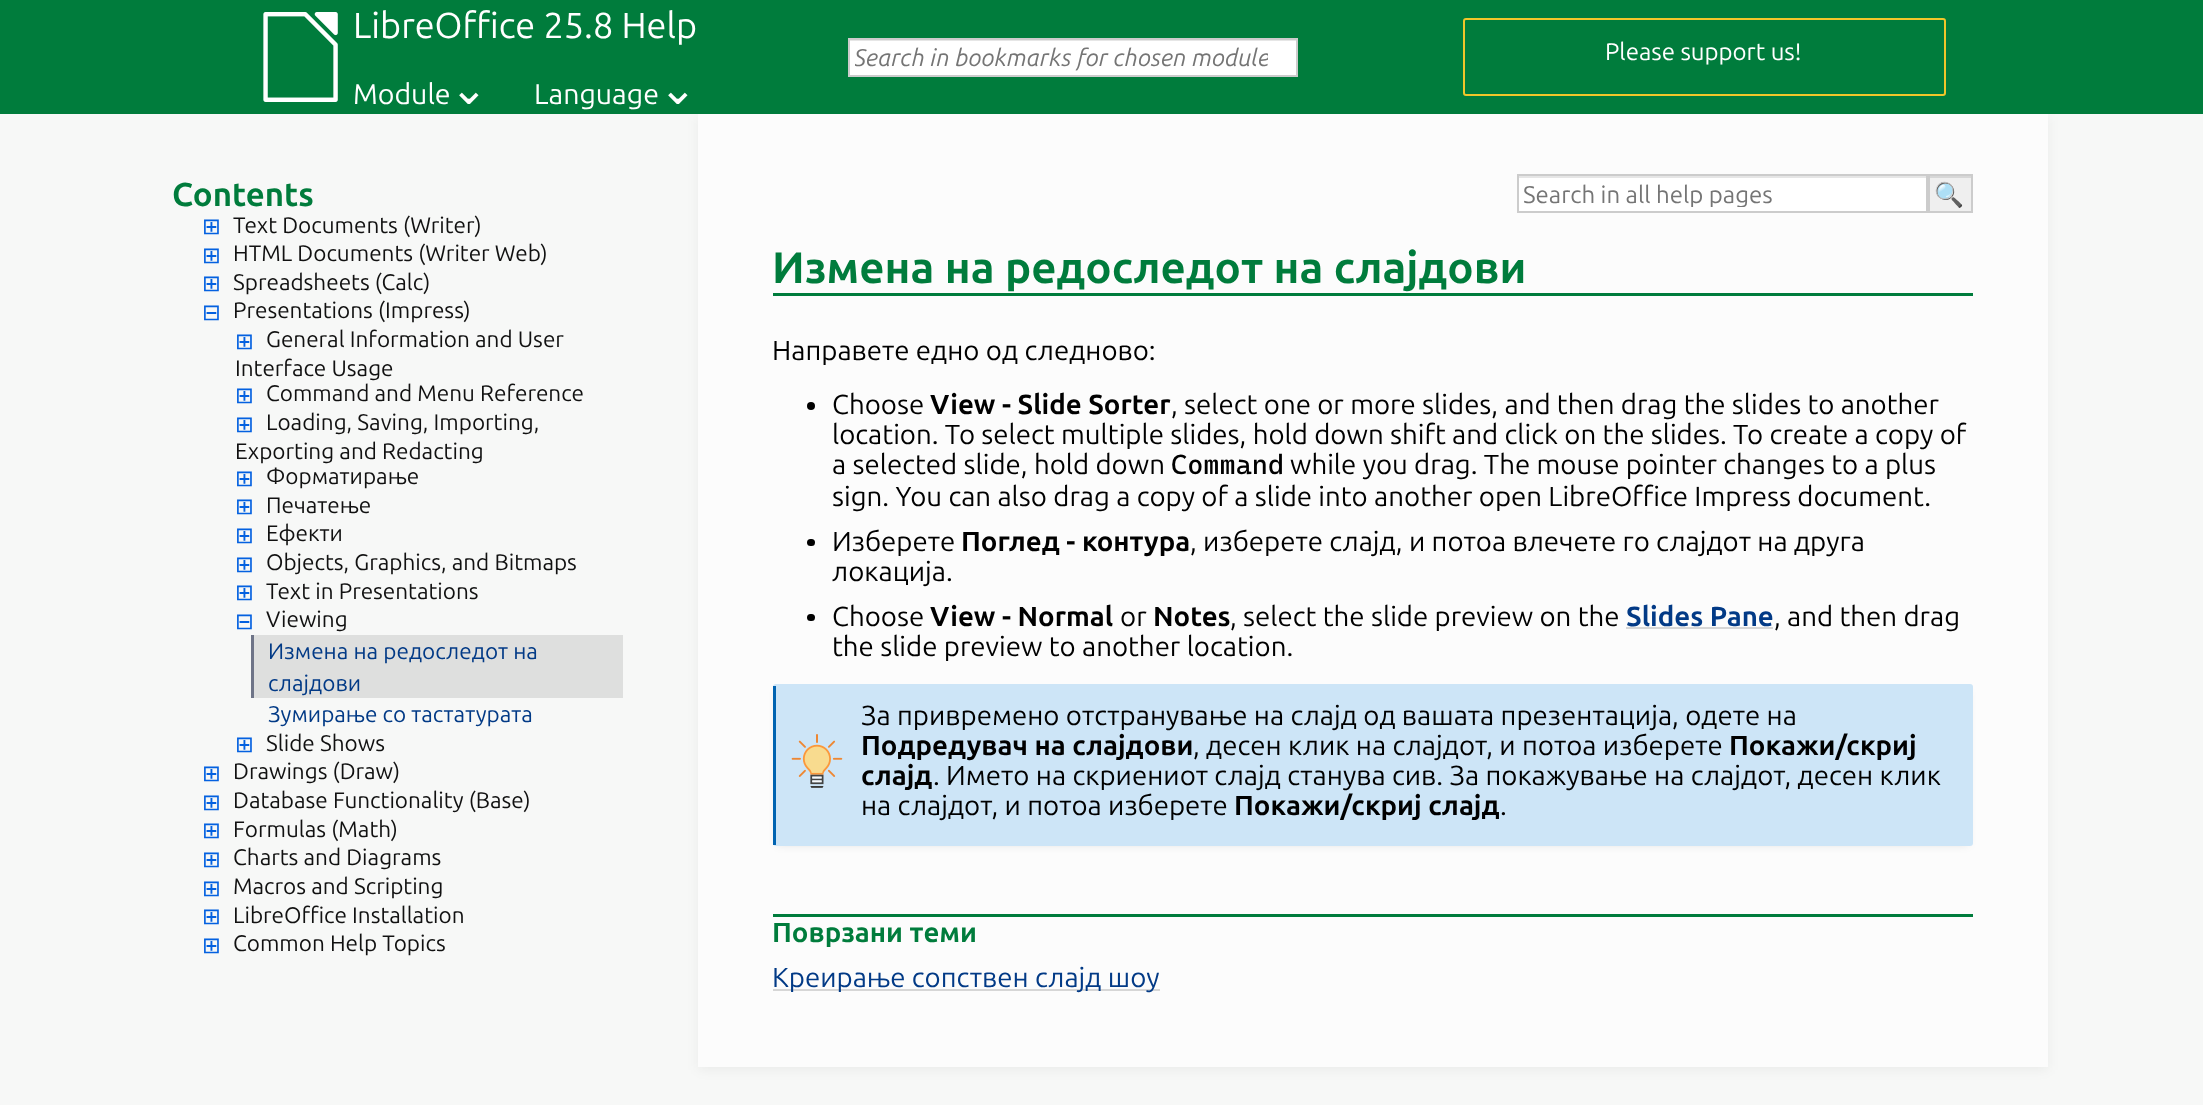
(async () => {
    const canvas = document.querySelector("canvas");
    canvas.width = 2203;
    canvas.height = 1105;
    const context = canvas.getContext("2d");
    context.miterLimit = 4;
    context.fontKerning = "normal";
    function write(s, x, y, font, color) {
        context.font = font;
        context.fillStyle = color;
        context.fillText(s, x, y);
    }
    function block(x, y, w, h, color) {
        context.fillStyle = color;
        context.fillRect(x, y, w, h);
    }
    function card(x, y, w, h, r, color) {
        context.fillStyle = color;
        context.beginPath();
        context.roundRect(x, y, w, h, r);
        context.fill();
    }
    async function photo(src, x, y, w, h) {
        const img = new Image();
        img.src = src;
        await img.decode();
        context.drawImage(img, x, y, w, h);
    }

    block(0, 0, 2203, 1105, "rgb(247, 248, 247)");
    context.fillStyle = "rgba(0, 0, 0, 0.05)";
    context.filter = "blur(6px)";
    context.beginPath();
    context.rect(698, 117, 1350, 953);
    context.fill();
    context.filter = "none";
    block(0, 0, 2203, 114, "rgb(0, 124, 60)");
    await photo("media/1.png", 263, 12, 75, 90);
    write("LibreOffice 25.8 Help", 353, 38, "36px Ubuntu", "rgb(255, 255, 255)");
    write("Module", 353, 104, "28.5px Ubuntu", "rgb(255, 255, 255)");
    write("⌄", 450, 104, "45px DejaVu Sans", "rgb(255, 255, 255)");
    write("Language", 534, 104, "28.5px Ubuntu", "rgb(255, 255, 255)");
    write("⌄", 659, 104, "45px DejaVu Sans", "rgb(255, 255, 255)");
    block(850, 41, 446, 34, "rgb(255, 255, 255)");
    block(849, 40, 447, 1, "rgb(230, 230, 230)");
    context.strokeStyle = "rgb(204, 204, 204)";
    context.lineWidth = 2;
    context.strokeRect(849, 39, 448, 37);
    context.save();
    context.beginPath();
    context.rect(855, 44, 413, 27);
    context.clip();
    write("Search in bookmarks for chosen module", 854, 66, "italic 24px Ubuntu", "rgb(117, 117, 117)");
    context.restore();
    context.beginPath();
    context.roundRect(1464, 19, 481, 76, 2);
    context.strokeStyle = "rgb(241, 198, 42)";
    context.stroke();
    write("Please support us!", 1605, 60, "24px Ubuntu", "rgb(255, 255, 255)");
    write("Contents", 172, 206, "bold 33px Ubuntu", "rgb(0, 124, 60)");
    write("⊞", 202, 234, "22.5px DejaVu Sans", "rgb(4, 97, 224)");
    write("Text Documents (Writer)", 233, 233, "22.5px Ubuntu", "rgb(17, 17, 17)");
    write("⊞", 202, 263, "22.5px DejaVu Sans", "rgb(4, 97, 224)");
    write("HTML Documents (Writer Web)", 233, 261, "22.5px Ubuntu", "rgb(17, 17, 17)");
    write("⊞", 202, 291, "22.5px DejaVu Sans", "rgb(4, 97, 224)");
    write("Spreadsheets (Calc)", 233, 290, "22.5px Ubuntu", "rgb(17, 17, 17)");
    write("⊟", 202, 320, "22.5px DejaVu Sans", "rgb(4, 97, 224)");
    write("Presentations (Impress)", 233, 318, "22.5px Ubuntu", "rgb(17, 17, 17)");
    write("⊞", 235, 349, "22.5px DejaVu Sans", "rgb(4, 97, 224)");
    write("General Information and User", 266, 347, "22.5px Ubuntu", "rgb(17, 17, 17)");
    write("Interface Usage", 235, 376, "22.5px Ubuntu", "rgb(17, 17, 17)");
    write("⊞", 235, 403, "22.5px DejaVu Sans", "rgb(4, 97, 224)");
    write("Command and Menu Reference", 266, 401, "22.5px Ubuntu", "rgb(17, 17, 17)");
    write("⊞", 235, 432, "22.5px DejaVu Sans", "rgb(4, 97, 224)");
    write("Loading, Saving, Importing,", 266, 430, "22.5px Ubuntu", "rgb(17, 17, 17)");
    write("Exporting and Redacting", 235, 459, "22.5px Ubuntu", "rgb(17, 17, 17)");
    write("⊞", 235, 486, "22.5px DejaVu Sans", "rgb(4, 97, 224)");
    write("Форматирање", 266, 484, "22.5px Ubuntu", "rgb(17, 17, 17)");
    write("⊞", 235, 514, "22.5px DejaVu Sans", "rgb(4, 97, 224)");
    write("Печатење", 266, 513, "22.5px Ubuntu", "rgb(17, 17, 17)");
    write("⊞", 235, 543, "22.5px DejaVu Sans", "rgb(4, 97, 224)");
    write("Ефекти", 266, 541, "22.5px Ubuntu", "rgb(17, 17, 17)");
    write("⊞", 235, 572, "22.5px DejaVu Sans", "rgb(4, 97, 224)");
    write("Objects, Graphics, and Bitmaps", 266, 570, "22.5px Ubuntu", "rgb(17, 17, 17)");
    write("⊞", 235, 600, "22.5px DejaVu Sans", "rgb(4, 97, 224)");
    write("Text in Presentations", 266, 599, "22.5px Ubuntu", "rgb(17, 17, 17)");
    write("⊟", 235, 629, "22.5px DejaVu Sans", "rgb(4, 97, 224)");
    write("Viewing", 266, 627, "22.5px Ubuntu", "rgb(17, 17, 17)");
    block(254, 635, 369, 63, "rgb(222, 223, 222)");
    block(251, 635, 3, 63, "rgb(110, 116, 135)");
    write("Измена на редоследот на", 268, 659, "22.5px Ubuntu", "rgb(2, 58, 134)");
    write("слајдови", 268, 691, "22.5px Ubuntu", "rgb(2, 58, 134)");
    write("Зумирање со тастатурата", 268, 722, "22.5px Ubuntu", "rgb(2, 58, 134)");
    write("⊞", 235, 752, "22.5px DejaVu Sans", "rgb(4, 97, 224)");
    write("Slide Shows", 266, 751, "22.5px Ubuntu", "rgb(17, 17, 17)");
    write("⊞", 202, 781, "22.5px DejaVu Sans", "rgb(4, 97, 224)");
    write("Drawings (Draw)", 233, 779, "22.5px Ubuntu", "rgb(17, 17, 17)");
    write("⊞", 202, 810, "22.5px DejaVu Sans", "rgb(4, 97, 224)");
    write("Database Functionality (Base)", 233, 808, "22.5px Ubuntu", "rgb(17, 17, 17)");
    write("⊞", 202, 838, "22.5px DejaVu Sans", "rgb(4, 97, 224)");
    write("Formulas (Math)", 233, 837, "22.5px Ubuntu", "rgb(17, 17, 17)");
    write("⊞", 202, 867, "22.5px DejaVu Sans", "rgb(4, 97, 224)");
    write("Charts and Diagrams", 233, 865, "22.5px Ubuntu", "rgb(17, 17, 17)");
    write("⊞", 202, 896, "22.5px DejaVu Sans", "rgb(4, 97, 224)");
    write("Macros and Scripting", 233, 894, "22.5px Ubuntu", "rgb(17, 17, 17)");
    write("⊞", 202, 924, "22.5px DejaVu Sans", "rgb(4, 97, 224)");
    write("LibreOffice Installation", 233, 923, "22.5px Ubuntu", "rgb(17, 17, 17)");
    write("⊞", 202, 953, "22.5px DejaVu Sans", "rgb(4, 97, 224)");
    write("Common Help Topics", 233, 951, "22.5px Ubuntu", "rgb(17, 17, 17)");
    block(698, 114, 1350, 953, "rgb(252, 252, 252)");
    block(1519, 178, 407, 33, "rgb(255, 255, 255)");
    block(1518, 176, 408, 2, "rgb(230, 230, 230)");
    context.strokeStyle = "rgb(204, 204, 204)";
    context.strokeRect(1518, 175, 409, 37);
    context.save();
    context.beginPath();
    context.rect(1524, 180, 374, 27);
    context.clip();
    write("Search in all help pages", 1523, 203, "24px Ubuntu", "rgb(117, 117, 117)");
    context.restore();
    block(1930, 178, 41, 33, "rgb(239, 239, 239)");
    block(1929, 176, 42, 2, "rgb(215, 215, 215)");
    context.strokeRect(1929, 175, 43, 37);
    write("🔍", 1934, 203, "24px Noto Color Emoji", "rgb(0, 0, 0)");
    block(773, 293, 1200, 3, "rgb(0, 124, 60)");
    write("Измена на редоследот на слајдови", 772, 283, "bold 43.9px Ubuntu", "rgb(0, 124, 60)");
    write("Направете едно од следново:", 772, 360, "27.6px Ubuntu", "rgb(0, 0, 0)");
    context.beginPath();
    context.arc(811, 406, 4, 0, Math.PI * 2);
    context.fill();
    write("Choose", 832, 414, "27.6px Ubuntu", "rgb(0, 0, 0)");
    write("View - Slide Sorter", 930, 414, "bold 27.6px Ubuntu", "rgb(0, 0, 0)");
    write(", select one or more slides, and then drag the slides to another", 1171, 414, "27.6px Ubuntu", "rgb(0, 0, 0)");
    write("location. To select multiple slides, hold down shift and click on the slides. To create a copy of", 832, 444, "27.6px Ubuntu", "rgb(0, 0, 0)");
    write("a selected slide, hold down", 832, 474, "27.6px Ubuntu", "rgb(0, 0, 0)");
    write("Command", 1171, 474, "27.6px Cascadia Mono", "rgb(0, 0, 0)");
    write("while you drag. The mouse pointer changes to a plus", 1290, 474, "27.6px Ubuntu", "rgb(0, 0, 0)");
    write("sign. You can also drag a copy of a slide into another open LibreOffice Impress document.", 832, 506, "27.6px Ubuntu", "rgb(0, 0, 0)");
    card(807, 539, 8, 7, 3.5, "rgb(0, 0, 0)");
    write("Изберете", 832, 551, "27.6px Ubuntu", "rgb(0, 0, 0)");
    write("Поглед - контура", 961, 551, "bold 27.6px Ubuntu", "rgb(0, 0, 0)");
    write(", изберете слајд, и потоа влечете го слајдот на друга", 1190, 551, "27.6px Ubuntu", "rgb(0, 0, 0)");
    write("локација.", 832, 581, "27.6px Ubuntu", "rgb(0, 0, 0)");
    card(807, 614, 8, 7, 3.5, "rgb(0, 0, 0)");
    write("Choose", 832, 626, "27.6px Ubuntu", "rgb(0, 0, 0)");
    write("View - Normal", 930, 626, "bold 27.6px Ubuntu", "rgb(0, 0, 0)");
    write("or", 1120, 626, "27.6px Ubuntu", "rgb(0, 0, 0)");
    write("Notes", 1153, 626, "bold 27.6px Ubuntu", "rgb(0, 0, 0)");
    write(", select the slide preview on the", 1230, 626, "27.6px Ubuntu", "rgb(0, 0, 0)");
    write("Slides Pane", 1626, 626, "bold 27.6px Ubuntu", "rgb(2, 58, 134)");
    block(1626, 627, 147, 2, "rgb(214, 214, 214)");
    write(", and then drag", 1774, 626, "27.6px Ubuntu", "rgb(0, 0, 0)");
    write("the slide preview to another location.", 832, 656, "27.6px Ubuntu", "rgb(0, 0, 0)");
    context.fillStyle = "rgba(0, 0, 0, 0.1)";
    context.filter = "blur(4px)";
    context.beginPath();
    context.rect(777, 692, 1191, 153);
    context.fill();
    context.filter = "none";
    card(773, 684, 1200, 162, 3, "rgb(205, 229, 247)");
    block(773, 686, 3, 159, "rgb(0, 99, 177)");
    await photo("media/2.png", 791, 734, 52, 54);
    write("За привремено отстранување на слајд од вашата презентација, одете на", 861, 725, "27.6px Ubuntu", "rgb(0, 0, 0)");
    write("Подредувач на слајдови", 861, 755, "bold 27.6px Ubuntu", "rgb(0, 0, 0)");
    write(", десен клик на слајдот, и потоа изберете", 1193, 755, "27.6px Ubuntu", "rgb(0, 0, 0)");
    write("Покажи/скриј", 1729, 755, "bold 27.6px Ubuntu", "rgb(0, 0, 0)");
    write("слајд", 861, 785, "bold 27.6px Ubuntu", "rgb(0, 0, 0)");
    write(". Името на скриениот слајд станува сив. За покажување на слајдот, десен клик", 933, 785, "27.6px Ubuntu", "rgb(0, 0, 0)");
    write("на слајдот, и потоа изберете", 861, 815, "27.6px Ubuntu", "rgb(0, 0, 0)");
    write("Покажи/скриј слајд", 1234, 815, "bold 27.6px Ubuntu", "rgb(0, 0, 0)");
    write(".", 1500, 815, "27.6px Ubuntu", "rgb(0, 0, 0)");
    block(773, 914, 1200, 3, "rgb(0, 124, 60)");
    write("Поврзани теми", 772, 942, "bold 27.6px Ubuntu", "rgb(0, 124, 60)");
    block(773, 989, 387, 2, "rgb(214, 214, 214)");
    write("Креирање сопствен слајд шоу", 772, 987, "27.6px Ubuntu", "rgb(2, 58, 134)");
})();
